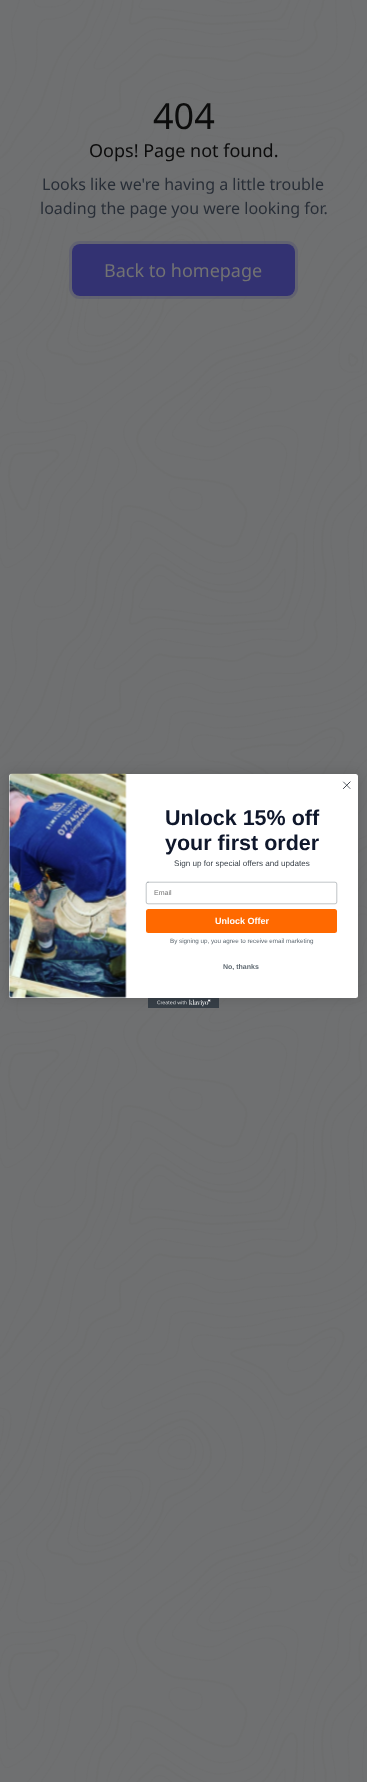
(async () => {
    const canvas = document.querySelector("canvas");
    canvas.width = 367;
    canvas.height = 1782;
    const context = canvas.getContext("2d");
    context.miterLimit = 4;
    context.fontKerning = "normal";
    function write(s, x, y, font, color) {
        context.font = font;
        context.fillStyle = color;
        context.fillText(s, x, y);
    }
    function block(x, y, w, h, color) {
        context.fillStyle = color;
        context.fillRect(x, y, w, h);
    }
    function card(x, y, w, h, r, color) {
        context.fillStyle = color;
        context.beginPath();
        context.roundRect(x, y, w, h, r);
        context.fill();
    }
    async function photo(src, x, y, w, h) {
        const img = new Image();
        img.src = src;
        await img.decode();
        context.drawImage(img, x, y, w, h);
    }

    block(0, 0, 367, 1782, "rgb(111, 112, 113)");
    await photo("media/1.png", 0, 0, 367, 1782);
    write("404", 153, 129, "36px Noto Sans", "rgb(12, 12, 12)");
    write("Oops! Page not found.", 89, 157, "18px Noto Sans", "rgb(12, 12, 12)");
    write("Looks like we're having a little trouble", 42, 190, "16px Noto Sans", "rgb(40, 46, 55)");
    write("loading the page you were looking for.", 40, 214, "16px Noto Sans", "rgb(40, 46, 55)");
    card(72, 244, 223, 52, 8, "rgb(51, 50, 114)");
    context.beginPath();
    context.roundRect(70.5, 242.5, 226, 55, 9.5);
    context.strokeStyle = "rgba(51, 50, 114, 0.2)";
    context.lineWidth = 3;
    context.stroke();
    write("Back to homepage", 104, 277, "18px Noto Sans", "rgb(114, 114, 114)");
    await photo("media/3.png", 148, 998, 71, 10);
    context.fillStyle = "rgba(0, 0, 0, 0.15)";
    context.filter = "blur(6.5px)";
    context.beginPath();
    context.roundRect(9, 774, 349, 224, 2.5);
    context.fill();
    context.filter = "none";
    card(9, 774, 349, 224, 2.5, "rgb(255, 255, 255)");
    context.beginPath();
    context.moveTo(343.5, 782);
    context.lineTo(350, 788.5);
    context.moveTo(343.5, 788.5);
    context.lineTo(350, 782);
    context.closePath();
    context.strokeStyle = "rgb(55, 63, 71)";
    context.lineWidth = 0.8;
    context.lineCap = "round";
    context.lineJoin = "round";
    context.stroke();
    await photo("media/2.png", 9, 773, 118, 225);
    write("Unlock 15% off", 165, 825, "bold 21.5px Liberation Sans", "rgb(15, 23, 43)");
    write("your first order", 165, 850, "bold 21.5px Liberation Sans", "rgb(15, 23, 43)");
    write("Sign up for special offers and updates", 174, 866, "8.1px Liberation Sans", "rgb(55, 63, 71)");
    context.beginPath();
    context.roundRect(146.2, 882.2, 190.6, 21.6, 1.8);
    context.strokeStyle = "rgb(96, 106, 114)";
    context.lineWidth = 0.4;
    context.lineJoin = "miter";
    context.stroke();
    write("Email", 154, 895, "7px Liberation Sans", "rgb(114, 114, 114)");
    card(146, 909, 191, 24, 2.5, "rgb(255, 105, 0)");
    write("Unlock Offer", 215, 924, "bold 9px Liberation Sans", "rgb(255, 255, 255)");
    write("By signing up, you agree to receive email marketing", 170, 943, "6.25px Liberation Sans", "rgb(96, 106, 114)");
    write("No, thanks", 223, 969, "bold 7px Liberation Sans", "rgb(96, 106, 114)");
})();
